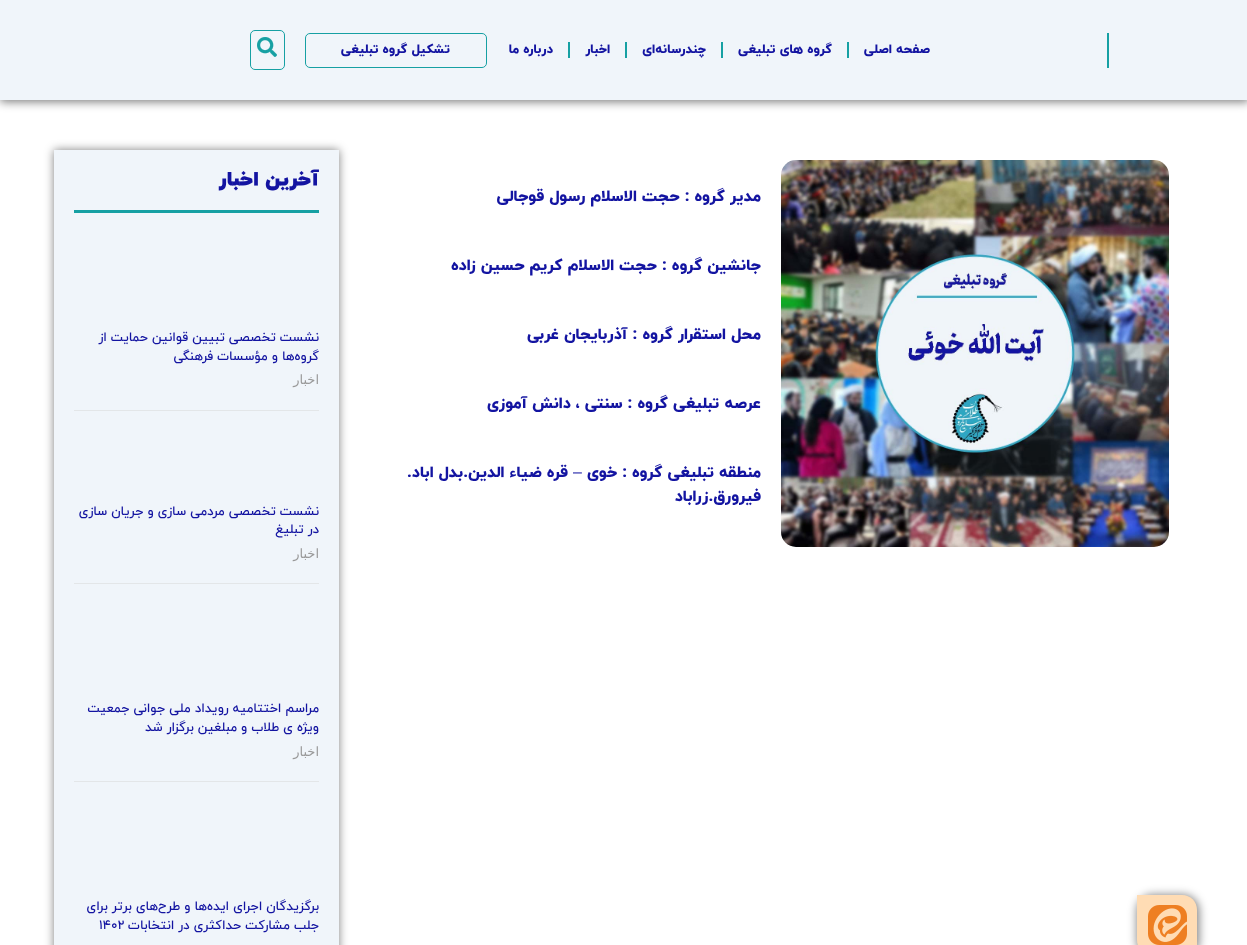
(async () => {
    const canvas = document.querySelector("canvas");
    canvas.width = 1247;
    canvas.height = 945;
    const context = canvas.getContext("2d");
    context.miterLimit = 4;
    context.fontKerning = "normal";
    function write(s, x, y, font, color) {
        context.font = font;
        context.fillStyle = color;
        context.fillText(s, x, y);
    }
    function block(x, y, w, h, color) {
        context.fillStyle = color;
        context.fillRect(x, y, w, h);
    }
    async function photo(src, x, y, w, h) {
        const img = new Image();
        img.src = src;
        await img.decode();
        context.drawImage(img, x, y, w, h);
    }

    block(0, 0, 1247, 945, "rgb(255, 255, 255)");
    context.fillStyle = "rgba(0, 0, 0, 0.5)";
    context.filter = "blur(5px)";
    context.beginPath();
    context.rect(0, 0, 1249, 102);
    context.fill();
    context.filter = "none";
    block(0, 0, 1247, 100, "rgb(240, 245, 250)");
    block(1107, 33, 2, 35, "rgb(22, 160, 163)");
    context.direction = "rtl";
    write("صفحه اصلی", 930, 53, "800 13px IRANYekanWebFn", "rgb(19, 20, 161)");
    block(847, 42, 2, 16, "rgb(22, 160, 163)");
    write("گروه های تبلیغی", 832, 53, "800 13px IRANYekanWebFn", "rgb(19, 20, 161)");
    block(721, 42, 2, 16, "rgb(22, 160, 163)");
    write("چندرسانه‌ای", 706, 53, "800 13px IRANYekanWebFn", "rgb(19, 20, 161)");
    block(625, 42, 2, 16, "rgb(22, 160, 163)");
    write("اخبار", 610, 53, "800 13px IRANYekanWebFn", "rgb(19, 20, 161)");
    block(568, 42, 2, 16, "rgb(22, 160, 163)");
    write("درباره ما", 553, 53, "800 13px IRANYekanWebFn", "rgb(19, 20, 161)");
    context.beginPath();
    context.roundRect(305.5, 33.5, 181, 34, 4.5);
    context.strokeStyle = "rgb(22, 160, 163)";
    context.stroke();
    write("تشکیل گروه تبلیغی", 450, 53, "800 13px IRANYekanWebFn", "rgb(19, 20, 161)");
    context.beginPath();
    context.roundRect(250.5, 30.5, 34, 39, 4.5);
    context.stroke();
    await photo("media/1.png", 257, 37, 20, 20);
    context.fillStyle = "rgba(0, 0, 0, 0.5)";
    context.filter = "blur(5px)";
    context.beginPath();
    context.roundRect(1137, 895, 62, 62, 16);
    context.fill();
    context.filter = "none";
    context.fillStyle = "rgb(255, 220, 180)";
    context.beginPath();
    context.moveTo(1137, 895);
    context.lineTo(1182, 895);
    context.bezierCurveTo(1190.5, 895, 1197, 901.5, 1197, 910);
    context.lineTo(1197, 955);
    context.lineTo(1152, 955);
    context.bezierCurveTo(1143.5, 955, 1137, 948.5, 1137, 940);
    context.closePath();
    context.fill();
    await photo("media/2.png", 1148, 905, 39, 40);
    await photo("media/3.png", 781, 160, 388, 387);
    write("مدیر گروه : حجت الاسلام رسول قوجالی", 761, 201, "800 16px IRANYekanWebFn", "rgb(19, 20, 161)");
    write("جانشین گروه : حجت الاسلام کریم حسین زاده", 761, 270, "800 16px IRANYekanWebFn", "rgb(19, 20, 161)");
    write("محل استقرار گروه : آذربایجان غربی", 761, 339, "800 16px IRANYekanWebFn", "rgb(19, 20, 161)");
    write("عرصه تبلیغی گروه : سنتی ، دانش آموزی", 761, 408, "800 16px IRANYekanWebFn", "rgb(19, 20, 161)");
    write("منطقه تبلیغی گروه : خوی", 761, 477, "800 16px IRANYekanWebFn", "rgb(19, 20, 161)");
    write("–", 582, 477, "16px Liberation Sans", "rgb(19, 20, 161)");
    write("قره ضیاء الدین.بدل اباد.", 568, 477, "800 16px IRANYekanWebFn", "rgb(19, 20, 161)");
    write("فیرورق.زراباد", 761, 501, "800 16px IRANYekanWebFn", "rgb(19, 20, 161)");
    context.fillStyle = "rgba(0, 0, 0, 0.5)";
    context.filter = "blur(5px)";
    context.beginPath();
    context.rect(54, 150, 285, 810);
    context.fill();
    context.filter = "none";
    block(54, 150, 285, 795, "rgb(240, 245, 250)");
    write("آخرین اخبار", 319, 185, "900 20px IRANYekanWebFn", "rgb(19, 20, 161)");
    block(74, 210, 245, 3, "rgb(22, 160, 163)");
    write("نشست تخصصی تبیین قوانین حمایت از", 319, 341, "500 13px IRANYekanWebFn", "rgb(19, 20, 161)");
    write("گروه‌ها و مؤسسات فرهنگی", 319, 360, "500 13px IRANYekanWebFn", "rgb(19, 20, 161)");
    write("اخبار", 319, 384, "13px DejaVu Sans", "rgb(153, 153, 153)");
    block(74, 410, 245, 1, "rgb(227, 230, 232)");
    write("نشست تخصصی مردمی سازی و جریان سازی", 319, 515, "500 13px IRANYekanWebFn", "rgb(19, 20, 161)");
    write("در تبلیغ", 319, 533, "500 13px IRANYekanWebFn", "rgb(19, 20, 161)");
    write("اخبار", 319, 558, "13px DejaVu Sans", "rgb(153, 153, 153)");
    block(74, 583, 245, 1, "rgb(227, 230, 232)");
    write("مراسم اختتامیه رویداد ملی جوانی جمعیت", 319, 712, "500 13px IRANYekanWebFn", "rgb(19, 20, 161)");
    write("ویژه ی طلاب و مبلغین برگزار شد", 319, 731, "500 13px IRANYekanWebFn", "rgb(19, 20, 161)");
    write("اخبار", 319, 756, "13px DejaVu Sans", "rgb(153, 153, 153)");
    block(74, 781, 245, 1, "rgb(227, 230, 232)");
    write("برگزیدگان اجرای ایده‌ها و طرح‌های برتر برای", 319, 910, "500 13px IRANYekanWebFn", "rgb(19, 20, 161)");
    write("جلب مشارکت حداکثری در انتخابات", 319, 929, "500 13px IRANYekanWebFn", "rgb(19, 20, 161)");
    context.direction = "ltr";
    write("1402", 99, 929, "500 13px IRANYekanWebFn", "rgb(19, 20, 161)");
})();
